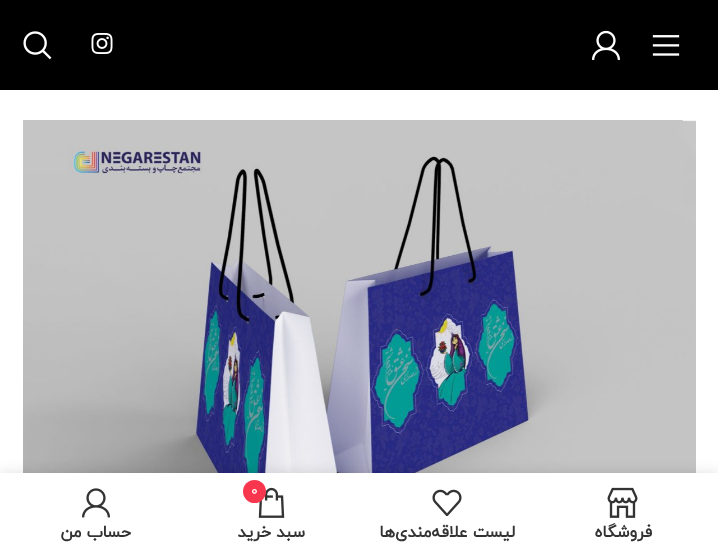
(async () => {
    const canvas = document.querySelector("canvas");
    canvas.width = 718;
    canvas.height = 555;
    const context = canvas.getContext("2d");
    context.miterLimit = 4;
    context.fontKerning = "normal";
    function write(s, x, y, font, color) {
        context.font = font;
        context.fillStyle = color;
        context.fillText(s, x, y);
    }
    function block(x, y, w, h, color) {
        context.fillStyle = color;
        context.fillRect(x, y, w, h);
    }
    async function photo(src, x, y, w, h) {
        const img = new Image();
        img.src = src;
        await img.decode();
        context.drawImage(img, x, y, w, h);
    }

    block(0, 0, 718, 555, "rgb(255, 255, 255)");
    block(0, 0, 718, 90, "rgb(0, 0, 0)");
    await photo("media/1.png", 652, 35, 28, 21);
    await photo("media/2.png", 592, 30, 28, 30);
    await photo("media/3.png", 91, 33, 22, 21);
    await photo("media/4.png", 23, 31, 29, 29);
    await photo("media/5.png", 23, 120, 673, 353);
    context.fillStyle = "rgba(0, 0, 0, 0.12)";
    context.filter = "blur(7px)";
    context.beginPath();
    context.rect(0, 473, 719, 82);
    context.fill();
    context.filter = "none";
    block(0, 473, 718, 82, "rgb(255, 255, 255)");
    await photo("media/6.png", 607, 487, 31, 31);
    context.direction = "rtl";
    write("فروشگاه", 652, 537, "bold 16.5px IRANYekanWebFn", "rgb(51, 51, 51)");
    await photo("media/7.png", 432, 489, 30, 27);
    write("لیست علاقه‌مندی‌ها", 515, 537, "bold 16.5px IRANYekanWebFn", "rgb(51, 51, 51)");
    await photo("media/8.png", 258, 487, 27, 31);
    context.fillStyle = "rgb(248, 55, 79)";
    context.beginPath();
    context.arc(254.5, 491.5, 11.5, 0, Math.PI * 2);
    context.fill();
    context.direction = "ltr";
    write("0", 251, 495, "14px IRANYekanWebFn", "rgb(255, 255, 255)");
    context.direction = "rtl";
    write("سبد خرید", 305, 537, "bold 16.5px IRANYekanWebFn", "rgb(51, 51, 51)");
    await photo("media/9.png", 82, 488, 28, 30);
    write("حساب من", 131, 537, "bold 16.5px IRANYekanWebFn", "rgb(51, 51, 51)");
})();
